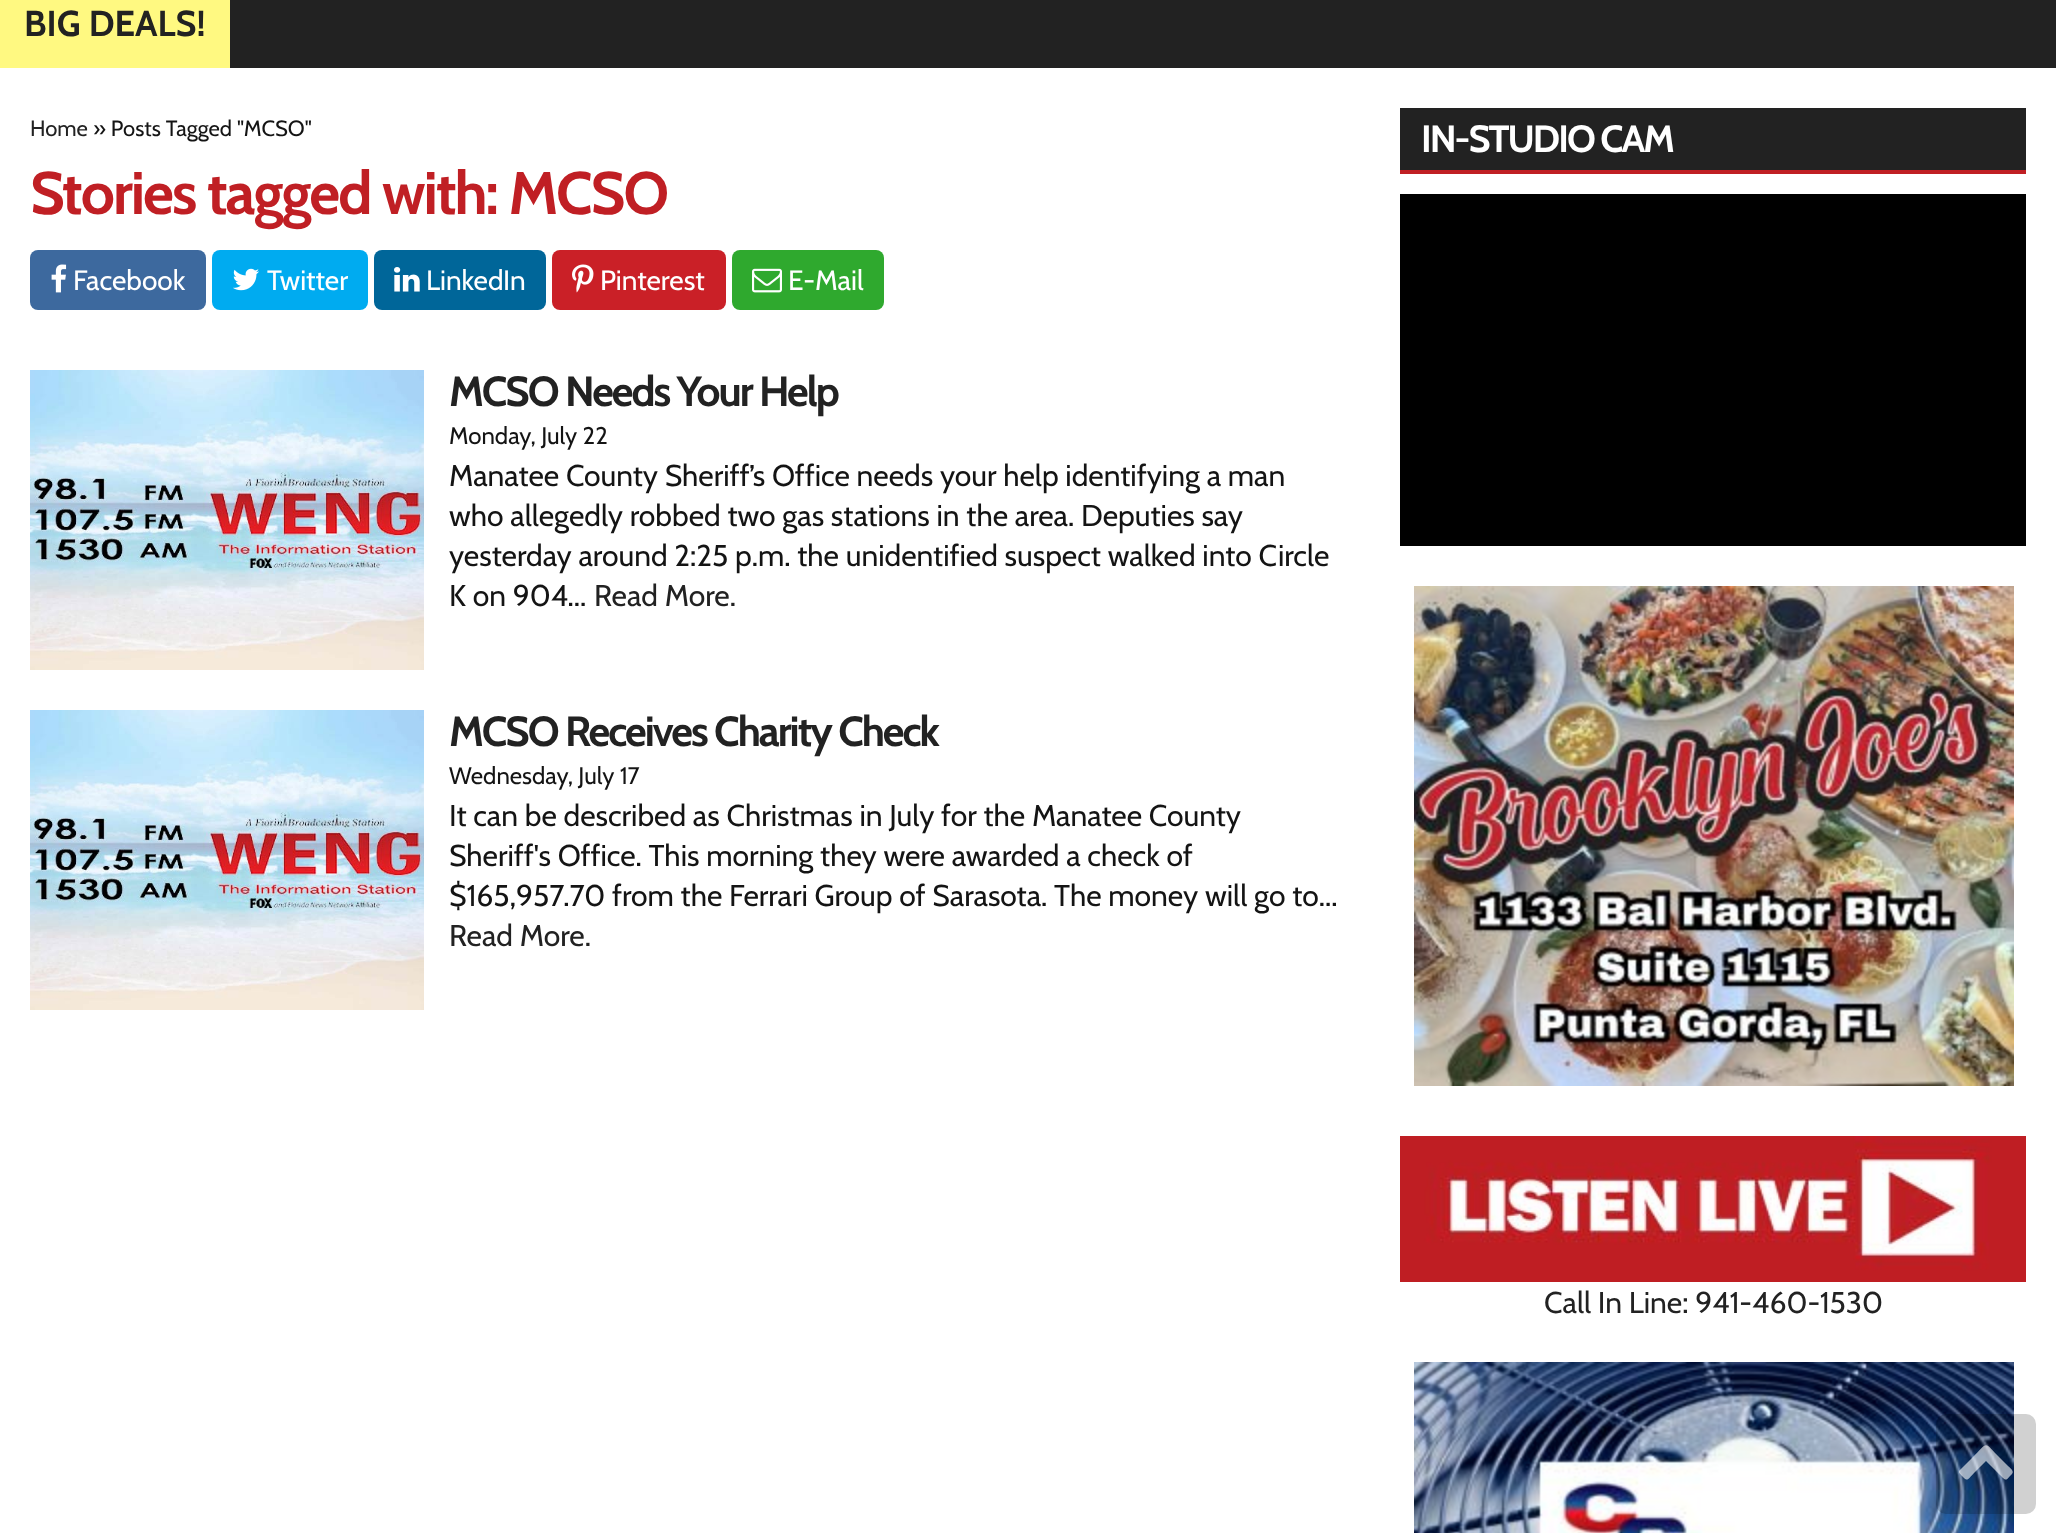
(async () => {
    const canvas = document.querySelector("canvas");
    canvas.width = 2056;
    canvas.height = 1533;
    const context = canvas.getContext("2d");
    context.miterLimit = 4;
    context.fontKerning = "normal";
    function write(s, x, y, font, color) {
        context.font = font;
        context.fillStyle = color;
        context.fillText(s, x, y);
    }
    function block(x, y, w, h, color) {
        context.fillStyle = color;
        context.fillRect(x, y, w, h);
    }
    function card(x, y, w, h, r, color) {
        context.fillStyle = color;
        context.beginPath();
        context.roundRect(x, y, w, h, r);
        context.fill();
    }
    async function photo(src, x, y, w, h) {
        const img = new Image();
        img.src = src;
        await img.decode();
        context.drawImage(img, x, y, w, h);
    }

    block(0, 0, 2056, 1533, "rgb(34, 34, 34)");
    block(0, 0, 230, 68, "rgb(255, 249, 129)");
    write("BIG DEALS!", 24, 36, "bold 36px Cabin", "rgb(34, 34, 34)");
    block(0, 68, 2056, 1465, "rgb(255, 255, 255)");
    write("Home", 30, 136, "22px Cabin", "rgb(34, 34, 34)");
    write("» Posts Tagged \"MCSO\"", 93, 136, "22px Cabin", "rgb(20, 20, 20)");
    context.letterSpacing = "-2px";
    write("Stories tagged with: MCSO", 30, 214, "bold 60px Cabin", "rgb(192, 31, 36)");
    card(30, 250, 176, 60, 8, "rgb(61, 105, 158)");
    await photo("media/1.png", 51, 264, 16, 29);
    context.letterSpacing = "0px";
    write("Facebook", 73, 290, "28px Cabin", "rgb(255, 255, 255)");
    card(212, 250, 156, 60, 8, "rgb(0, 171, 240)");
    await photo("media/2.png", 233, 268, 26, 23);
    write("Twitter", 267, 290, "28px Cabin", "rgb(255, 255, 255)");
    card(374, 250, 172, 60, 8, "rgb(0, 102, 153)");
    await photo("media/3.png", 394, 267, 26, 25);
    write("LinkedIn", 426, 290, "28px Cabin", "rgb(255, 255, 255)");
    card(552, 250, 174, 60, 8, "rgb(202, 32, 39)");
    await photo("media/4.png", 572, 264, 22, 29);
    write("Pinterest", 600, 290, "28px Cabin", "rgb(255, 255, 255)");
    card(732, 250, 152, 60, 8, "rgb(47, 169, 46)");
    await photo("media/5.png", 752, 268, 30, 25);
    write("E-Mail", 788, 290, "28px Cabin", "rgb(255, 255, 255)");
    await photo("media/6.png", 30, 370, 394, 300);
    context.letterSpacing = "-2px";
    write("MCSO Needs Your Help", 449, 406, "bold 42px Cabin", "rgb(34, 34, 34)");
    context.letterSpacing = "0px";
    write("Monday, July 22", 449, 444, "24px Cabin", "rgb(20, 20, 20)");
    write("Manatee County Sheriff’s Office needs your help identifying a man", 449, 486, "30px Cabin", "rgb(20, 20, 20)");
    write("who allegedly robbed two gas stations in the area. Deputies say", 449, 526, "30px Cabin", "rgb(20, 20, 20)");
    write("yesterday around 2:25 p.m. the unidentified suspect walked into Circle", 449, 566, "30px Cabin", "rgb(20, 20, 20)");
    write("K on 904...", 449, 606, "30px Cabin", "rgb(20, 20, 20)");
    write("Read More.", 594, 606, "30px Cabin", "rgb(34, 34, 34)");
    await photo("media/6.png", 30, 710, 394, 300);
    context.letterSpacing = "-2px";
    write("MCSO Receives Charity Check", 449, 746, "bold 42px Cabin", "rgb(34, 34, 34)");
    context.letterSpacing = "0px";
    write("Wednesday, July 17", 449, 784, "24px Cabin", "rgb(20, 20, 20)");
    write("It can be described as Christmas in July for the Manatee County", 449, 826, "30px Cabin", "rgb(20, 20, 20)");
    write("Sheriff's Office. This morning they were awarded a check of", 449, 866, "30px Cabin", "rgb(20, 20, 20)");
    write("$165,957.70 from the Ferrari Group of Sarasota. The money will go to...", 449, 906, "30px Cabin", "rgb(20, 20, 20)");
    write("Read More.", 449, 946, "30px Cabin", "rgb(34, 34, 34)");
    block(1400, 108, 626, 62, "rgb(34, 34, 34)");
    block(1400, 170, 626, 4, "rgb(192, 31, 36)");
    context.letterSpacing = "-2px";
    write("IN-STUDIO CAM", 1421, 152, "bold 38px Cabin", "rgb(255, 255, 255)");
    block(1400, 194, 626, 352, "rgb(0, 0, 0)");
    await photo("media/7.png", 1414, 586, 600, 500);
    await photo("media/8.png", 1400, 1136, 626, 146);
    context.letterSpacing = "0px";
    write("Call In Line: 941-460-1530", 1544, 1313, "30px Cabin", "rgb(34, 34, 34)");
    await photo("media/9.png", 1414, 1362, 600, 171);
    card(1936, 1414, 100, 100, 10, "rgba(0, 0, 0, 0.18)");
    context.fillStyle = "rgba(255, 255, 255, 0.6)";
    context.beginPath();
    context.moveTo(2012, 1474);
    context.bezierCurveTo(2006, 1480, 2007, 1482, 2001, 1476);
    context.lineTo(1986, 1461);
    context.lineTo(1974, 1473);
    context.bezierCurveTo(1968, 1479, 1968, 1482, 1963, 1477);
    context.bezierCurveTo(1957, 1471, 1958, 1472, 1964, 1466);
    context.lineTo(1972, 1458);
    context.bezierCurveTo(1989, 1441, 1983, 1441, 2000, 1458);
    context.lineTo(2008, 1466);
    context.bezierCurveTo(2009, 1467, 2015, 1471, 2012, 1474);
    context.closePath();
    context.fill();
})();
